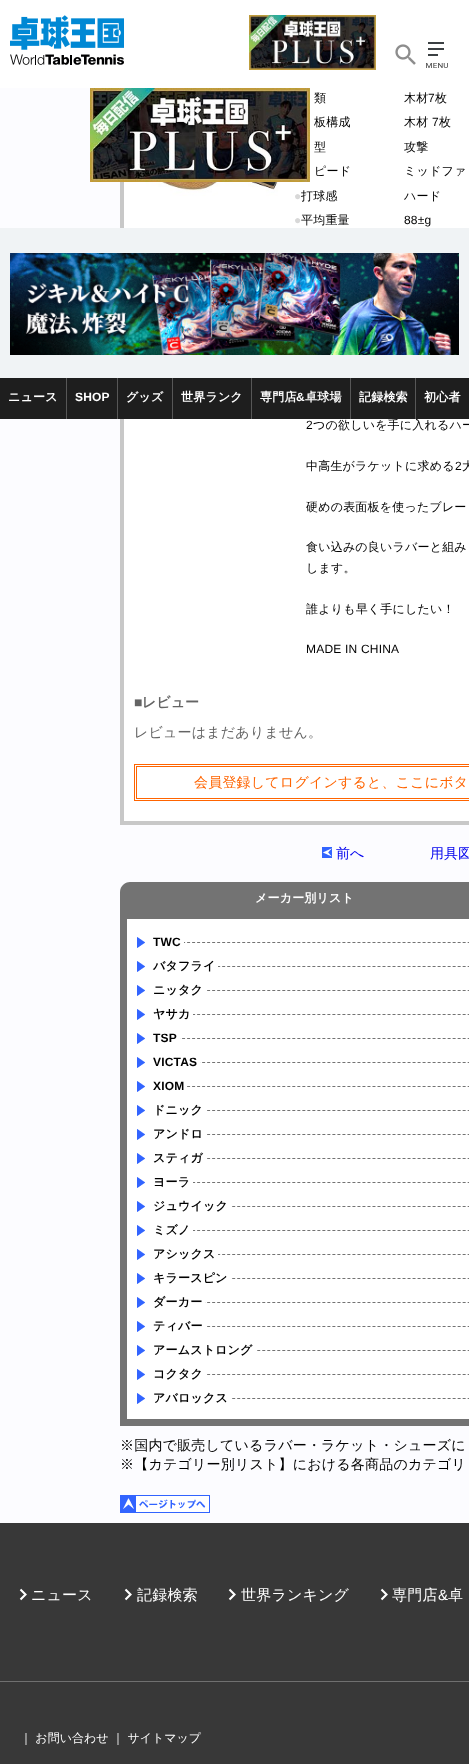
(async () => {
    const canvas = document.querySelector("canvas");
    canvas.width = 469;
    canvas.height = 1764;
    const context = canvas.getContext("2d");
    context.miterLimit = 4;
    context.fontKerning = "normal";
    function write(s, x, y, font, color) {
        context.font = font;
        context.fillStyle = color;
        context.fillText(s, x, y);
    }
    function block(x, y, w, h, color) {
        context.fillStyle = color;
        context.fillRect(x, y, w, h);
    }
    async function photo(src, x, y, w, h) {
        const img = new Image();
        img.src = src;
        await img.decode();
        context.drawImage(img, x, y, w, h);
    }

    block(0, 0, 469, 1764, "rgb(252, 252, 255)");
    block(124, 88, 345, 733, "rgb(255, 255, 255)");
    block(120, 821, 349, 4, "rgb(200, 200, 200)");
    block(120, 182, 4, 643, "rgb(200, 200, 200)");
    await photo("media/1.png", 137, 182, 144, 14);
    context.letterSpacing = "0.2px";
    write("類", 314, 102, "500 12px WenQuanYi Zen Hei", "rgb(0, 0, 0)");
    write("木材", 404, 102, "500 12px WenQuanYi Zen Hei", "rgb(0, 0, 0)");
    write("7", 428, 102, "12px Liberation Sans", "rgb(0, 0, 0)");
    write("枚", 435, 102, "500 12px WenQuanYi Zen Hei", "rgb(0, 0, 0)");
    write("板構成", 314, 126, "500 12px WenQuanYi Zen Hei", "rgb(0, 0, 0)");
    write("木材", 404, 126, "500 12px WenQuanYi Zen Hei", "rgb(0, 0, 0)");
    write("7", 432, 126, "12px Liberation Sans", "rgb(0, 0, 0)");
    write("枚", 439, 126, "500 12px WenQuanYi Zen Hei", "rgb(0, 0, 0)");
    write("型", 314, 151, "500 12px WenQuanYi Zen Hei", "rgb(0, 0, 0)");
    write("攻撃", 404, 151, "500 12px WenQuanYi Zen Hei", "rgb(0, 0, 0)");
    write("ピード", 314, 175, "500 12px WenQuanYi Zen Hei", "rgb(0, 0, 0)");
    write("ミッドファ", 404, 175, "500 12px WenQuanYi Zen Hei", "rgb(0, 0, 0)");
    write("●", 294, 200, "12px Liberation Sans", "rgb(216, 216, 216)");
    write("打球感", 301, 200, "500 12px WenQuanYi Zen Hei", "rgb(0, 0, 0)");
    write("ハード", 404, 200, "500 12px WenQuanYi Zen Hei", "rgb(0, 0, 0)");
    write("●", 294, 224, "12px Liberation Sans", "rgb(216, 216, 216)");
    write("平均重量", 301, 224, "500 12px WenQuanYi Zen Hei", "rgb(0, 0, 0)");
    write("88±g", 404, 224, "12px Liberation Sans", "rgb(0, 0, 0)");
    write("2", 306, 429, "12px Liberation Sans", "rgb(0, 0, 0)");
    write("つの欲しいを手に入れるハー", 313, 429, "500 12px WenQuanYi Zen Hei", "rgb(0, 0, 0)");
    write("中高生がラケットに求める", 306, 470, "500 12px WenQuanYi Zen Hei", "rgb(0, 0, 0)");
    write("2", 455, 470, "12px Liberation Sans", "rgb(0, 0, 0)");
    write("大", 462, 470, "500 12px WenQuanYi Zen Hei", "rgb(0, 0, 0)");
    write("硬めの表面板を使ったブレー", 306, 511, "500 12px WenQuanYi Zen Hei", "rgb(0, 0, 0)");
    write("食い込みの良いラバーと組み", 306, 551, "500 12px WenQuanYi Zen Hei", "rgb(0, 0, 0)");
    write("します。", 306, 572, "500 12px WenQuanYi Zen Hei", "rgb(0, 0, 0)");
    write("誰よりも早く手にしたい！", 306, 613, "500 12px WenQuanYi Zen Hei", "rgb(0, 0, 0)");
    write("MADE IN CHINA", 306, 653, "12px Liberation Sans", "rgb(0, 0, 0)");
    context.letterSpacing = "0px";
    write("■", 134, 707, "bold 14px Liberation Sans", "rgb(100, 100, 100)");
    write("レビュー", 142, 707, "bold 14px WenQuanYi Zen Hei", "rgb(100, 100, 100)");
    context.letterSpacing = "0.2px";
    write("レビューはまだありません。", 134, 737, "500 14px WenQuanYi Zen Hei", "rgb(100, 100, 100)");
    context.strokeStyle = "rgb(255, 100, 0)";
    context.strokeRect(134.5, 764.5, 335, 36);
    context.strokeRect(136.5, 766.5, 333, 32);
    write("会員登録してログインすると、ここにボタ", 194, 787, "500 14px WenQuanYi Zen Hei", "rgb(255, 100, 0)");
    await photo("media/2.png", 322, 847, 10, 11);
    context.letterSpacing = "0px";
    write("前へ", 336, 858, "500 14px WenQuanYi Zen Hei", "rgb(0, 0, 238)");
    write("用具図", 430, 858, "500 14px WenQuanYi Zen Hei", "rgb(0, 0, 238)");
    context.fillStyle = "rgb(115, 115, 115)";
    context.beginPath();
    context.moveTo(130, 882);
    context.lineTo(469, 882);
    context.bezierCurveTo(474.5, 882, 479, 886.5, 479, 892);
    context.lineTo(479, 912);
    context.lineTo(120, 912);
    context.lineTo(120, 892);
    context.bezierCurveTo(120, 886.5, 124.5, 882, 130, 882);
    context.closePath();
    context.fill();
    context.letterSpacing = "0.2px";
    write("メーカー別リスト", 255, 902, "bold 12px WenQuanYi Zen Hei", "rgb(255, 255, 255)");
    context.beginPath();
    context.rect(123.5, 915.5, 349, 507);
    context.fill();
    context.strokeStyle = "rgb(115, 115, 115)";
    context.lineWidth = 7;
    context.stroke();
    context.beginPath();
    context.moveTo(137, 942.5);
    context.lineTo(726, 942.5);
    context.lineWidth = 1;
    context.setLineDash([3, 2.01]);
    context.stroke();
    block(137, 942, 47, 1, "rgb(255, 255, 255)");
    await photo("media/3.png", 137, 937, 8, 11);
    write("TWC", 153, 946, "bold 12px Liberation Sans", "rgb(0, 0, 0)");
    context.beginPath();
    context.moveTo(137, 966.5);
    context.lineTo(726, 966.5);
    context.stroke();
    block(137, 966, 81, 1, "rgb(255, 255, 255)");
    await photo("media/3.png", 137, 961, 8, 11);
    write("バタフライ", 153, 970, "bold 12px WenQuanYi Zen Hei", "rgb(0, 0, 0)");
    context.beginPath();
    context.moveTo(137, 990.5);
    context.lineTo(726, 990.5);
    context.stroke();
    block(137, 990, 69, 1, "rgb(255, 255, 255)");
    await photo("media/3.png", 137, 985, 8, 11);
    write("ニッタク", 153, 994, "bold 12px WenQuanYi Zen Hei", "rgb(0, 0, 0)");
    context.beginPath();
    context.moveTo(137, 1014.5);
    context.lineTo(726, 1014.5);
    context.stroke();
    block(137, 1014, 56, 1, "rgb(255, 255, 255)");
    await photo("media/3.png", 137, 1009, 8, 11);
    write("ヤサカ", 153, 1018, "bold 12px WenQuanYi Zen Hei", "rgb(0, 0, 0)");
    context.beginPath();
    context.moveTo(137, 1038.5);
    context.lineTo(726, 1038.5);
    context.stroke();
    block(137, 1038, 43, 1, "rgb(255, 255, 255)");
    await photo("media/3.png", 137, 1033, 8, 11);
    write("TSP", 153, 1042, "bold 12px Liberation Sans", "rgb(0, 0, 0)");
    context.beginPath();
    context.moveTo(137, 1062.5);
    context.lineTo(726, 1062.5);
    context.stroke();
    block(137, 1062, 63, 1, "rgb(255, 255, 255)");
    await photo("media/3.png", 137, 1057, 8, 11);
    write("VICTAS", 153, 1066, "bold 12px Liberation Sans", "rgb(0, 0, 0)");
    context.beginPath();
    context.moveTo(137, 1086.5);
    context.lineTo(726, 1086.5);
    context.stroke();
    block(137, 1086, 49, 1, "rgb(255, 255, 255)");
    await photo("media/3.png", 137, 1081, 8, 11);
    write("XIOM", 153, 1090, "bold 12px Liberation Sans", "rgb(0, 0, 0)");
    context.beginPath();
    context.moveTo(137, 1110.5);
    context.lineTo(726, 1110.5);
    context.stroke();
    block(137, 1110, 69, 1, "rgb(255, 255, 255)");
    await photo("media/3.png", 137, 1105, 8, 11);
    write("ドニック", 153, 1114, "bold 12px WenQuanYi Zen Hei", "rgb(0, 0, 0)");
    context.beginPath();
    context.moveTo(137, 1134.5);
    context.lineTo(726, 1134.5);
    context.stroke();
    block(137, 1134, 69, 1, "rgb(255, 255, 255)");
    await photo("media/3.png", 137, 1129, 8, 11);
    write("アンドロ", 153, 1138, "bold 12px WenQuanYi Zen Hei", "rgb(0, 0, 0)");
    context.beginPath();
    context.moveTo(137, 1158.5);
    context.lineTo(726, 1158.5);
    context.stroke();
    block(137, 1158, 69, 1, "rgb(255, 255, 255)");
    await photo("media/3.png", 137, 1153, 8, 11);
    write("スティガ", 153, 1162, "bold 12px WenQuanYi Zen Hei", "rgb(0, 0, 0)");
    context.beginPath();
    context.moveTo(137, 1182.5);
    context.lineTo(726, 1182.5);
    context.stroke();
    block(137, 1182, 56, 1, "rgb(255, 255, 255)");
    await photo("media/3.png", 137, 1177, 8, 11);
    write("ヨーラ", 153, 1186, "bold 12px WenQuanYi Zen Hei", "rgb(0, 0, 0)");
    context.beginPath();
    context.moveTo(137, 1206.5);
    context.lineTo(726, 1206.5);
    context.stroke();
    block(137, 1206, 94, 1, "rgb(255, 255, 255)");
    await photo("media/3.png", 137, 1201, 8, 11);
    write("ジュウイック", 153, 1210, "bold 12px WenQuanYi Zen Hei", "rgb(0, 0, 0)");
    context.beginPath();
    context.moveTo(137, 1230.5);
    context.lineTo(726, 1230.5);
    context.stroke();
    block(137, 1230, 56, 1, "rgb(255, 255, 255)");
    await photo("media/3.png", 137, 1225, 8, 11);
    write("ミズノ", 153, 1234, "bold 12px WenQuanYi Zen Hei", "rgb(0, 0, 0)");
    context.beginPath();
    context.moveTo(137, 1254.5);
    context.lineTo(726, 1254.5);
    context.stroke();
    block(137, 1254, 81, 1, "rgb(255, 255, 255)");
    await photo("media/3.png", 137, 1249, 8, 11);
    write("アシックス", 153, 1258, "bold 12px WenQuanYi Zen Hei", "rgb(0, 0, 0)");
    context.beginPath();
    context.moveTo(137, 1278.5);
    context.lineTo(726, 1278.5);
    context.stroke();
    block(137, 1278, 94, 1, "rgb(255, 255, 255)");
    await photo("media/3.png", 137, 1273, 8, 11);
    write("キラースピン", 153, 1282, "bold 12px WenQuanYi Zen Hei", "rgb(0, 0, 0)");
    context.beginPath();
    context.moveTo(137, 1302.5);
    context.lineTo(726, 1302.5);
    context.stroke();
    block(137, 1302, 68, 1, "rgb(255, 255, 255)");
    await photo("media/3.png", 137, 1297, 8, 11);
    write("ダーカー", 153, 1306, "bold 12px WenQuanYi Zen Hei", "rgb(0, 0, 0)");
    context.beginPath();
    context.moveTo(137, 1326.5);
    context.lineTo(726, 1326.5);
    context.stroke();
    block(137, 1326, 69, 1, "rgb(255, 255, 255)");
    await photo("media/3.png", 137, 1321, 8, 11);
    write("ティバー", 153, 1330, "bold 12px WenQuanYi Zen Hei", "rgb(0, 0, 0)");
    context.beginPath();
    context.moveTo(137, 1350.5);
    context.lineTo(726, 1350.5);
    context.stroke();
    block(137, 1350, 119, 1, "rgb(255, 255, 255)");
    await photo("media/3.png", 137, 1345, 8, 11);
    write("アームストロング", 153, 1354, "bold 12px WenQuanYi Zen Hei", "rgb(0, 0, 0)");
    context.beginPath();
    context.moveTo(137, 1374.5);
    context.lineTo(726, 1374.5);
    context.stroke();
    block(137, 1374, 69, 1, "rgb(255, 255, 255)");
    await photo("media/3.png", 137, 1369, 8, 11);
    write("コクタク", 153, 1378, "bold 12px WenQuanYi Zen Hei", "rgb(0, 0, 0)");
    context.beginPath();
    context.moveTo(137, 1398.5);
    context.lineTo(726, 1398.5);
    context.stroke();
    block(137, 1398, 94, 1, "rgb(255, 255, 255)");
    await photo("media/3.png", 137, 1393, 8, 11);
    write("アバロックス", 153, 1402, "bold 12px WenQuanYi Zen Hei", "rgb(0, 0, 0)");
    write("※国内で販売しているラバー・ラケット・シューズに", 120, 1450, "500 14px WenQuanYi Zen Hei", "rgb(0, 0, 0)");
    write("※【カテゴリー別リスト】における各商品のカテゴリ", 120, 1469, "500 14px WenQuanYi Zen Hei", "rgb(0, 0, 0)");
    await photo("media/4.png", 120, 1495, 90, 18);
    block(0, 0, 469, 88, "rgb(255, 255, 255)");
    await photo("media/5.png", 10, 15, 114, 50);
    await photo("media/6.png", 249, 15, 127, 55);
    await photo("media/7.png", 395, 44, 21, 21);
    await photo("media/8.png", 426, 42, 22, 26);
    await photo("media/9.png", 90, 88, 220, 94);
    block(0, 228, 469, 150, "rgb(240, 243, 245)");
    await photo("media/10.png", 10, 253, 449, 102);
    block(0, 378, 66, 41, "rgb(30, 30, 30)");
    block(66, 378, 1, 41, "rgb(87, 87, 87)");
    write("ニュース", 8, 401, "bold 12px WenQuanYi Zen Hei", "rgb(255, 255, 255)");
    block(67, 378, 50, 41, "rgb(30, 30, 30)");
    block(117, 378, 1, 41, "rgb(87, 87, 87)");
    write("SHOP", 75, 401, "bold 12px Liberation Sans", "rgb(255, 255, 255)");
    block(118, 378, 54, 41, "rgb(30, 30, 30)");
    block(172, 378, 1, 41, "rgb(87, 87, 87)");
    write("グッズ", 126, 401, "bold 12px WenQuanYi Zen Hei", "rgb(255, 255, 255)");
    block(173, 378, 78, 41, "rgb(30, 30, 30)");
    block(251, 378, 1, 41, "rgb(87, 87, 87)");
    write("世界ランク", 181, 401, "bold 12px WenQuanYi Zen Hei", "rgb(255, 255, 255)");
    block(252, 378, 98, 41, "rgb(30, 30, 30)");
    block(350, 378, 1, 41, "rgb(87, 87, 87)");
    write("専門店", 260, 401, "bold 12px WenQuanYi Zen Hei", "rgb(255, 255, 255)");
    write("&", 296, 401, "bold 12px Liberation Sans", "rgb(255, 255, 255)");
    write("卓球場", 305, 401, "bold 12px WenQuanYi Zen Hei", "rgb(255, 255, 255)");
    block(351, 378, 64, 41, "rgb(30, 30, 30)");
    block(415, 378, 1, 41, "rgb(87, 87, 87)");
    write("記録検索", 359, 401, "bold 12px WenQuanYi Zen Hei", "rgb(255, 255, 255)");
    block(416, 378, 53, 41, "rgb(30, 30, 30)");
    write("初心者", 424, 401, "bold 12px WenQuanYi Zen Hei", "rgb(255, 255, 255)");
    block(0, 1523, 469, 241, "rgb(56, 56, 56)");
    block(0, 1681, 469, 1, "rgb(112, 112, 112)");
    write("ニュース", 31, 1600, "500 15px WenQuanYi Zen Hei", "rgb(255, 255, 255)");
    context.beginPath();
    context.moveTo(20.5, 1589.5);
    context.lineTo(25.5, 1594.5);
    context.lineTo(20.5, 1599.5);
    context.strokeStyle = "rgb(255, 255, 255)";
    context.lineWidth = 2.1;
    context.setLineDash([]);
    context.stroke();
    write("記録検索", 137, 1600, "500 15px WenQuanYi Zen Hei", "rgb(255, 255, 255)");
    context.beginPath();
    context.moveTo(125.5, 1589.5);
    context.lineTo(130.5, 1594.5);
    context.lineTo(125.5, 1599.5);
    context.stroke();
    write("世界ランキング", 241, 1600, "500 15px WenQuanYi Zen Hei", "rgb(255, 255, 255)");
    context.beginPath();
    context.moveTo(229.5, 1589.5);
    context.lineTo(234.5, 1594.5);
    context.lineTo(229.5, 1599.5);
    context.stroke();
    write("専門店", 392, 1600, "500 15px WenQuanYi Zen Hei", "rgb(255, 255, 255)");
    context.beginPath();
    context.moveTo(381.5, 1589.5);
    context.lineTo(386.5, 1594.5);
    context.lineTo(381.5, 1599.5);
    context.stroke();
    write("&", 438, 1600, "15px Liberation Sans", "rgb(255, 255, 255)");
    write("卓", 448, 1600, "500 15px WenQuanYi Zen Hei", "rgb(255, 255, 255)");
    context.letterSpacing = "0px";
    write("｜ お問い合わせ ｜ サイトマップ", 20, 1742, "500 12px WenQuanYi Zen Hei", "rgb(255, 255, 255)");
})();
